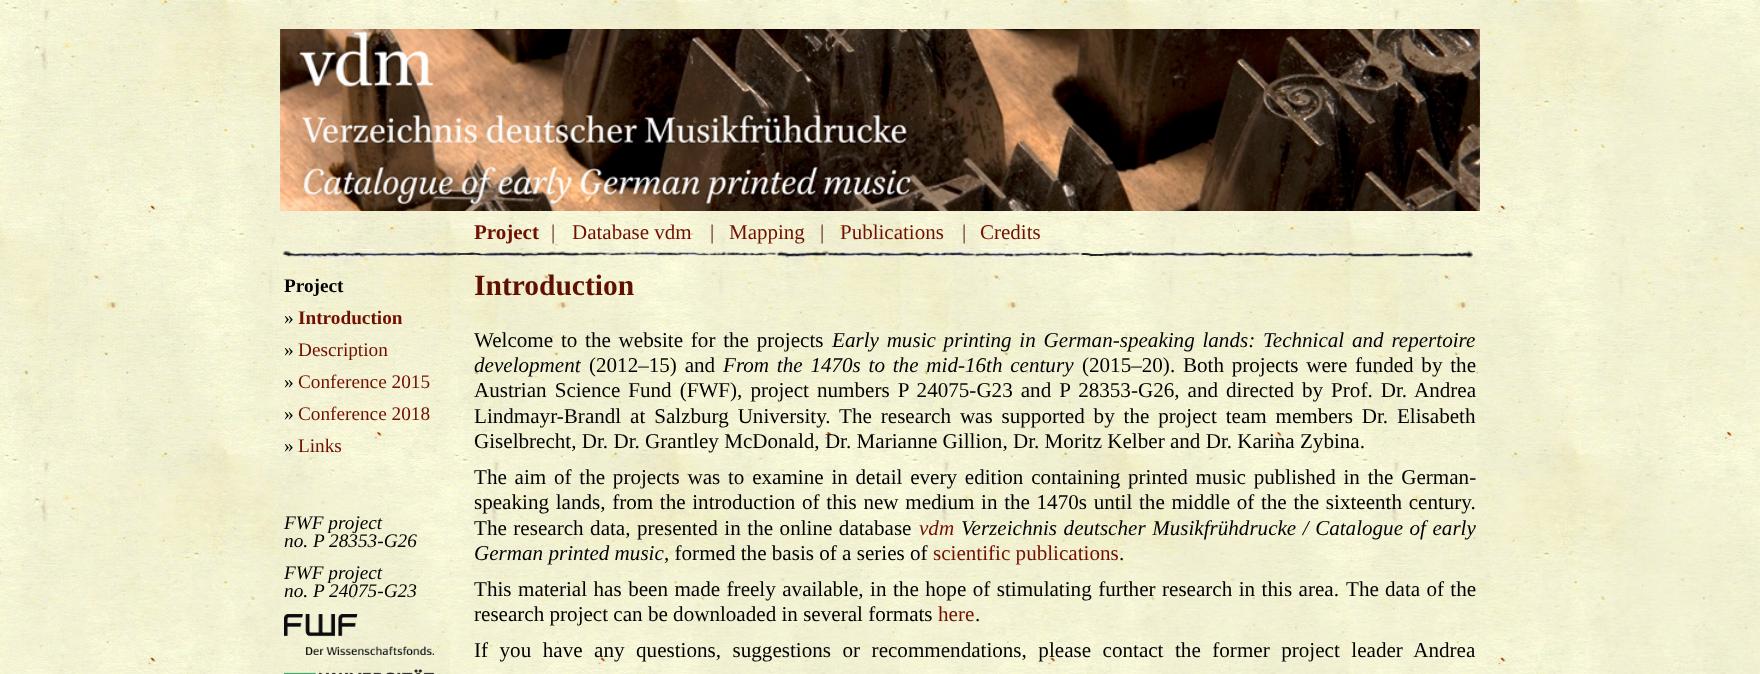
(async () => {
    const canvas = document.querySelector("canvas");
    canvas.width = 1760;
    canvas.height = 674;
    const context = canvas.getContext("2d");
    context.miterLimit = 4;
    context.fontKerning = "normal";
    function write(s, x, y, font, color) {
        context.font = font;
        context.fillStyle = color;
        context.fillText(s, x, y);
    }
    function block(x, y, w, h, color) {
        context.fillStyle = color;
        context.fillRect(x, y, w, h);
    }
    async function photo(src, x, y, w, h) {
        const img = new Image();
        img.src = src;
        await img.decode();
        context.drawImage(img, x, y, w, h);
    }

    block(0, 0, 1760, 674, "rgb(255, 255, 255)");
    await photo("media/1.png", 0, 0, 1760, 674);
    await photo("media/2.png", 280, 29, 1200, 182);
    write("Project", 474, 239, "bold 21px Liberation Serif", "rgb(112, 16, 0)");
    write("|", 551, 239, "21px Liberation Serif", "rgb(90, 20, 24)");
    write("Database vdm", 572, 239, "21px Liberation Serif", "rgb(112, 16, 0)");
    write("|", 710, 239, "21px Liberation Serif", "rgb(90, 20, 24)");
    write("Mapping", 729, 239, "21px Liberation Serif", "rgb(112, 16, 0)");
    write("|", 820, 239, "21px Liberation Serif", "rgb(90, 20, 24)");
    write("Publications", 840, 239, "21px Liberation Serif", "rgb(112, 16, 0)");
    write("|", 962, 239, "21px Liberation Serif", "rgb(90, 20, 24)");
    write("Credits", 980, 239, "21px Liberation Serif", "rgb(112, 16, 0)");
    await photo("media/3.png", 280, 249, 1196, 13);
    write("Project", 284, 292, "bold 19.25px Liberation Serif", "rgb(0, 0, 0)");
    write("»", 284, 324, "19.25px Liberation Serif", "rgb(0, 0, 0)");
    write("Introduction", 298, 324, "bold 19.25px Liberation Serif", "rgb(112, 16, 0)");
    write("»", 284, 356, "19.25px Liberation Serif", "rgb(0, 0, 0)");
    write("Description", 298, 356, "19.25px Liberation Serif", "rgb(112, 16, 0)");
    write("»", 284, 388, "19.25px Liberation Serif", "rgb(0, 0, 0)");
    write("Conference 2015", 298, 388, "19.25px Liberation Serif", "rgb(112, 16, 0)");
    write("»", 284, 420, "19.25px Liberation Serif", "rgb(0, 0, 0)");
    write("Conference 2018", 298, 420, "19.25px Liberation Serif", "rgb(112, 16, 0)");
    write("»", 284, 452, "19.25px Liberation Serif", "rgb(0, 0, 0)");
    write("Links", 298, 452, "19.25px Liberation Serif", "rgb(112, 16, 0)");
    write("FWF project", 284, 529, "italic 19.25px Liberation Serif", "rgb(0, 0, 0)");
    write("no. P 28353-G26", 284, 547, "italic 19.25px Liberation Serif", "rgb(0, 0, 0)");
    write("FWF project", 284, 579, "italic 19.25px Liberation Serif", "rgb(0, 0, 0)");
    write("no. P 24075-G23", 284, 597, "italic 19.25px Liberation Serif", "rgb(0, 0, 0)");
    await photo("media/4.png", 284, 614, 150, 41);
    await photo("media/5.png", 284, 669, 150, 5);
    write("Introduction", 474, 295, "bold 29.5px Liberation Serif", "rgb(96, 16, 0)");
    context.wordSpacing = "2.5px";
    write("Welcome to the website for the projects", 474, 347, "21.1px Liberation Serif", "rgb(0, 0, 0)");
    write("Early music printing in German-speaking lands: Technical and repertoire", 832, 347, "italic 21.1px Liberation Serif", "rgb(0, 0, 0)");
    context.wordSpacing = "0px";
    write("development", 474, 372, "italic 21.1px Liberation Serif", "rgb(0, 0, 0)");
    context.wordSpacing = "2.5px";
    write("(2012–15) and", 589, 372, "21.1px Liberation Serif", "rgb(0, 0, 0)");
    write("From the 1470s to the mid-16th century", 723, 372, "italic 21.1px Liberation Serif", "rgb(0, 0, 0)");
    write("(2015–20). Both projects were funded by the", 1082, 372, "21.1px Liberation Serif", "rgb(0, 0, 0)");
    context.wordSpacing = "2.75px";
    write("Austrian Science Fund (FWF), project numbers P 24075-G23 and P 28353-G26, and directed by Prof. Dr. Andrea", 474, 397, "21.1px Liberation Serif", "rgb(0, 0, 0)");
    context.wordSpacing = "3.6px";
    write("Lindmayr-Brandl at Salzburg University. The research was supported by the project team members Dr. Elisabeth", 474, 423, "21.1px Liberation Serif", "rgb(0, 0, 0)");
    context.wordSpacing = "0px";
    write("Giselbrecht, Dr. Dr. Grantley McDonald, Dr. Marianne Gillion, Dr. Moritz Kelber and Dr. Karina Zybina.", 474, 448, "21.1px Liberation Serif", "rgb(0, 0, 0)");
    context.wordSpacing = "2.5px";
    write("The aim of the projects was to examine in detail every edition containing printed music published in the German-", 474, 484, "21.1px Liberation Serif", "rgb(0, 0, 0)");
    context.wordSpacing = "1.4px";
    write("speaking lands, from the introduction of this new medium in the 1470s until the middle of the the sixteenth century.", 474, 509, "21.1px Liberation Serif", "rgb(0, 0, 0)");
    context.wordSpacing = "1.25px";
    write("The research data, presented in the online database", 474, 535, "21.1px Liberation Serif", "rgb(0, 0, 0)");
    context.wordSpacing = "0px";
    write("vdm", 919, 535, "italic 21.1px Liberation Serif", "rgb(112, 16, 0)");
    context.wordSpacing = "1.25px";
    write("Verzeichnis deutscher Musikfrühdrucke / Catalogue of early", 961, 535, "italic 21.1px Liberation Serif", "rgb(0, 0, 0)");
    context.wordSpacing = "0px";
    write("German printed music", 474, 560, "italic 21.1px Liberation Serif", "rgb(0, 0, 0)");
    write(", formed the basis of a series of", 664, 560, "21.1px Liberation Serif", "rgb(0, 0, 0)");
    write("scientific publications", 933, 560, "21.1px Liberation Serif", "rgb(112, 16, 0)");
    write(".", 1119, 560, "21.1px Liberation Serif", "rgb(0, 0, 0)");
    context.wordSpacing = "1.2px";
    write("This material has been made freely available, in the hope of stimulating further research in this area.", 474, 596, "21.1px Liberation Serif", "rgb(0, 0, 0)");
    context.wordSpacing = "1px";
    write("The data of the", 1346, 596, "21.1px Liberation Serif", "rgb(0, 0, 0)");
    context.wordSpacing = "0px";
    write("research project can be downloaded in several formats", 474, 621, "21.1px Liberation Serif", "rgb(0, 0, 0)");
    write("here", 938, 621, "21.1px Liberation Serif", "rgb(112, 16, 0)");
    write(".", 975, 621, "21.1px Liberation Serif", "rgb(0, 0, 0)");
    context.wordSpacing = "6.25px";
    write("If you have any questions, suggestions or recommendations, please contact the former project leader Andrea", 474, 657, "21.1px Liberation Serif", "rgb(0, 0, 0)");
})();
